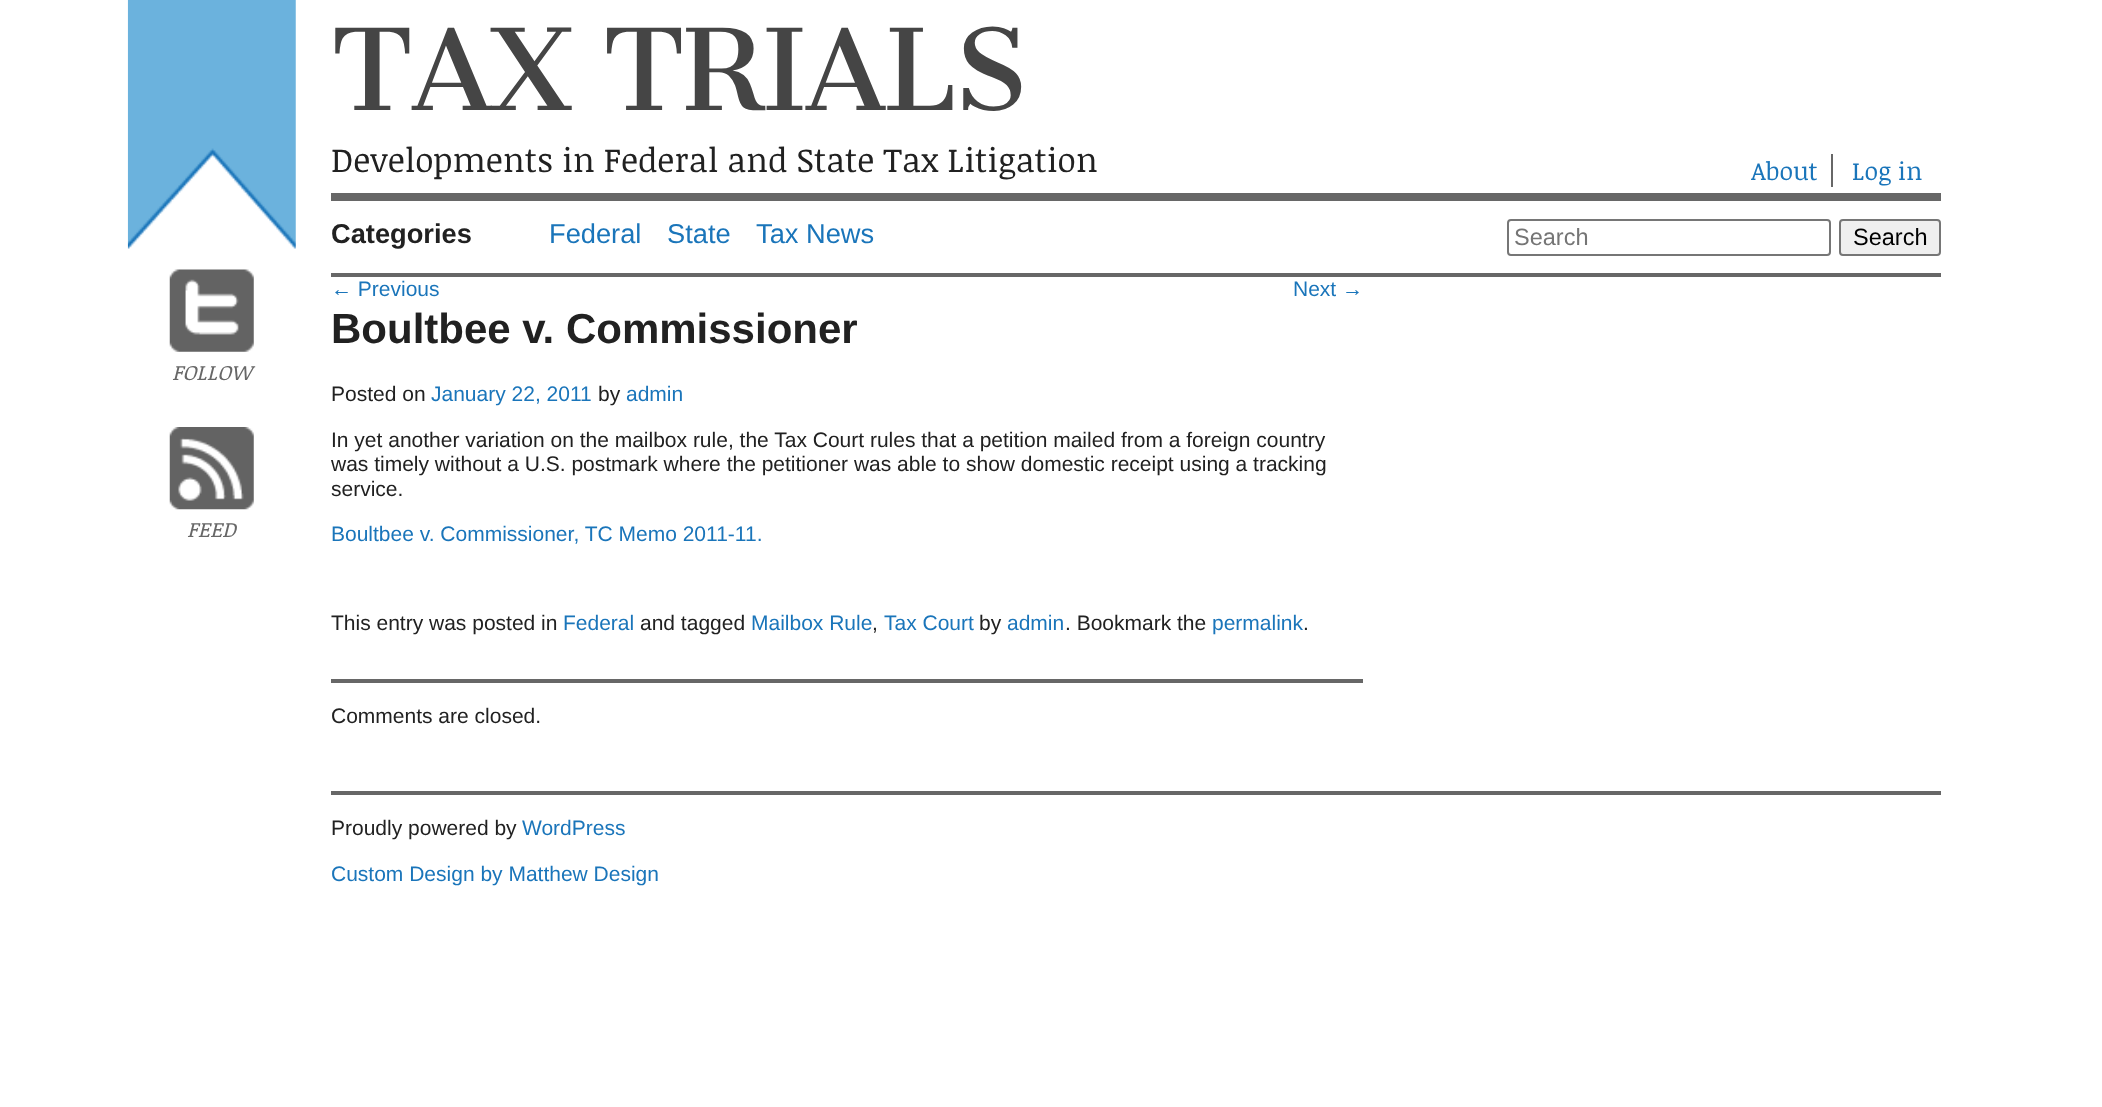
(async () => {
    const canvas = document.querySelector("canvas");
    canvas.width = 2102;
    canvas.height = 1107;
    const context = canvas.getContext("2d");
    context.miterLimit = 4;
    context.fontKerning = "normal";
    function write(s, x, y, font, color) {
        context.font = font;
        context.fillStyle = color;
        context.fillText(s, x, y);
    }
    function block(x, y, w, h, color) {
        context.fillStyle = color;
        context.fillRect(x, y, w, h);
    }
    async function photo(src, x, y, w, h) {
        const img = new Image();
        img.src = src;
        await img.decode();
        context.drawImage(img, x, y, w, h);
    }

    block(0, 0, 2102, 1107, "rgb(255, 255, 255)");
    await photo("media/1.png", 127, 0, 169, 249);
    await photo("media/2.png", 169, 269, 85, 83);
    write("FOLLOW", 172, 380, "italic 21px Noticia Text", "rgb(103, 103, 103)");
    await photo("media/3.png", 169, 427, 85, 83);
    write("FEED", 187, 537, "italic 21px Noticia Text", "rgb(103, 103, 103)");
    block(331, 193, 1610, 8, "rgb(103, 103, 103)");
    context.letterSpacing = "-3.25px";
    write("TAX TRIALS", 331, 110, "110.25px Cantata One", "rgb(69, 69, 69)");
    context.letterSpacing = "0px";
    write("Developments in Federal and State Tax Litigation", 331, 172, "33.6px Noticia Text", "rgb(33, 33, 33)");
    block(1831, 154, 2, 33, "rgb(103, 103, 103)");
    write("About", 1751, 180, "25px Noticia Text", "rgb(26, 117, 186)");
    write("Log in", 1852, 180, "25px Noticia Text", "rgb(26, 117, 186)");
    block(331, 273, 1610, 4, "rgb(103, 103, 103)");
    write("Categories", 331, 243, "bold 27.25px Liberation Sans", "rgb(33, 33, 33)");
    write("Federal", 549, 243, "27.25px Liberation Sans", "rgb(26, 117, 186)");
    write("State", 667, 243, "27.25px Liberation Sans", "rgb(26, 117, 186)");
    write("Tax News", 756, 243, "27.25px Liberation Sans", "rgb(26, 117, 186)");
    context.beginPath();
    context.roundRect(1508, 220, 322, 35, 3);
    context.strokeStyle = "rgb(118, 118, 118)";
    context.lineWidth = 2;
    context.stroke();
    write("Search", 1514, 245, "23.5px Liberation Sans", "rgb(117, 117, 117)");
    context.fillStyle = "rgb(239, 239, 239)";
    context.beginPath();
    context.roundRect(1840, 220, 100, 35, 3);
    context.fill();
    context.stroke();
    write("Search", 1853, 245, "23.5px Liberation Sans", "rgb(0, 0, 0)");
    write("← Previous", 331, 296, "21px Liberation Sans", "rgb(26, 117, 186)");
    write("Next →", 1293, 296, "21px Liberation Sans", "rgb(26, 117, 186)");
    write("Boultbee v. Commissioner", 331, 343, "bold 42px Liberation Sans", "rgb(33, 33, 33)");
    write("Posted on", 331, 401, "21px Liberation Sans", "rgb(33, 33, 33)");
    write("January 22, 2011", 431, 401, "21px Liberation Sans", "rgb(26, 117, 186)");
    write("by", 598, 401, "21px Liberation Sans", "rgb(33, 33, 33)");
    write("admin", 626, 401, "21px Liberation Sans", "rgb(26, 117, 186)");
    write("In yet another variation on the mailbox rule, the Tax Court rules that a petition mailed from a foreign country", 331, 447, "21px Liberation Sans", "rgb(33, 33, 33)");
    write("was timely without a U.S. postmark where the petitioner was able to show domestic receipt using a tracking", 331, 471, "21px Liberation Sans", "rgb(33, 33, 33)");
    write("service.", 331, 496, "21px Liberation Sans", "rgb(33, 33, 33)");
    write("Boultbee v. Commissioner, TC Memo 2011-11.", 331, 541, "21px Liberation Sans", "rgb(26, 117, 186)");
    block(331, 679, 1032, 4, "rgb(103, 103, 103)");
    write("This entry was posted in", 331, 630, "21px Liberation Sans", "rgb(33, 33, 33)");
    write("Federal", 563, 630, "21px Liberation Sans", "rgb(26, 117, 186)");
    write("and tagged", 640, 630, "21px Liberation Sans", "rgb(33, 33, 33)");
    write("Mailbox Rule", 751, 630, "21px Liberation Sans", "rgb(26, 117, 186)");
    write(",", 872, 630, "21px Liberation Sans", "rgb(33, 33, 33)");
    write("Tax Court", 884, 630, "21px Liberation Sans", "rgb(26, 117, 186)");
    write("by", 979, 630, "21px Liberation Sans", "rgb(33, 33, 33)");
    write("admin", 1007, 630, "21px Liberation Sans", "rgb(26, 117, 186)");
    write(". Bookmark the", 1065, 630, "21px Liberation Sans", "rgb(33, 33, 33)");
    write("permalink", 1212, 630, "21px Liberation Sans", "rgb(26, 117, 186)");
    write(".", 1303, 630, "21px Liberation Sans", "rgb(33, 33, 33)");
    write("Comments are closed.", 331, 723, "21px Liberation Sans", "rgb(33, 33, 33)");
    block(331, 791, 1610, 4, "rgb(103, 103, 103)");
    write("Proudly powered by", 331, 835, "21px Liberation Sans", "rgb(33, 33, 33)");
    write("WordPress", 522, 835, "21px Liberation Sans", "rgb(26, 117, 186)");
    write("Custom Design by Matthew Design", 331, 881, "21px Liberation Sans", "rgb(26, 117, 186)");
})();
